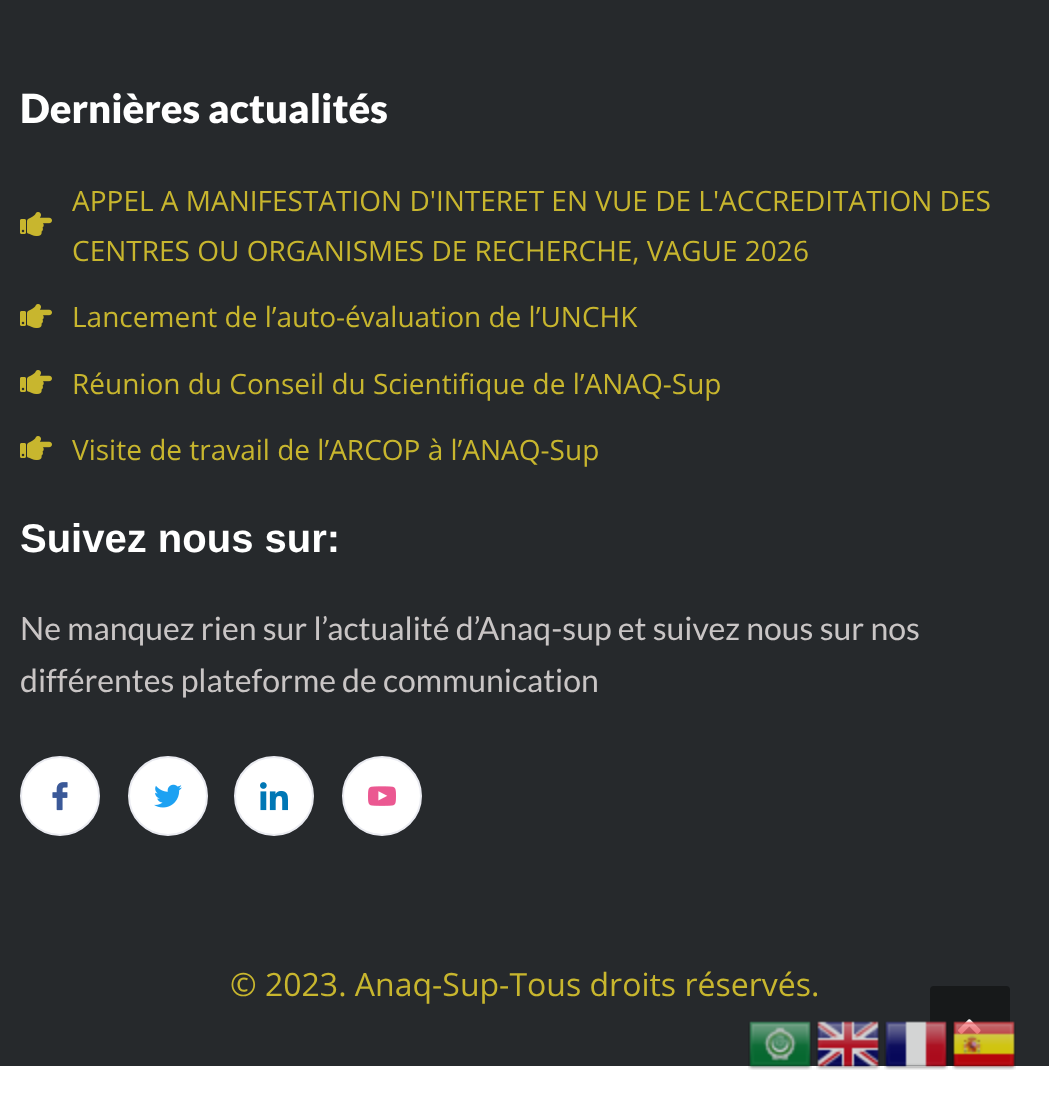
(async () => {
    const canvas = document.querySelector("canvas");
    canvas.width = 1049;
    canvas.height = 1106;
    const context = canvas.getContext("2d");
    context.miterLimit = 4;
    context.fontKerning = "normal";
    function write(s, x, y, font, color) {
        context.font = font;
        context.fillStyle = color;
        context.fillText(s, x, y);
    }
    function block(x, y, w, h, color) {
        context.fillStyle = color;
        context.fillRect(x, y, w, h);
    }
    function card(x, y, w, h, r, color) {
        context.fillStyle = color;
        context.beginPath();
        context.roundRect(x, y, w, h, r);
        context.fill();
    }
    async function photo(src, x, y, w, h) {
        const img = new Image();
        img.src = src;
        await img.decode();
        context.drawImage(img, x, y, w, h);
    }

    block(0, 0, 1049, 1106, "rgb(255, 255, 255)");
    block(0, 0, 1049, 1066, "rgb(38, 41, 44)");
    write("Dernières actualités", 20, 123, "900 40px Lato", "rgb(255, 255, 255)");
    await photo("media/1.png", 20, 212, 32, 24);
    write("APPEL A MANIFESTATION D'INTERET EN VUE DE L'ACCREDITATION DES", 72, 211, "28px Open Sans", "rgb(200, 182, 46)");
    write("CENTRES OU ORGANISMES DE RECHERCHE, VAGUE 2026", 72, 261, "28px Open Sans", "rgb(200, 182, 46)");
    await photo("media/1.png", 20, 304, 32, 24);
    write("Lancement de l’auto-évaluation de l’UNCHK", 72, 327, "28px Open Sans", "rgb(200, 182, 46)");
    await photo("media/1.png", 20, 370, 32, 24);
    write("Réunion du Conseil du Scientifique de l’ANAQ-Sup", 72, 394, "28px Open Sans", "rgb(200, 182, 46)");
    await photo("media/1.png", 20, 436, 32, 24);
    write("Visite de travail de l’ARCOP à l’ANAQ-Sup", 72, 460, "28px Open Sans", "rgb(200, 182, 46)");
    write("Suivez nous sur:", 20, 552, "bold 40px Liberation Sans", "rgb(255, 255, 255)");
    write("Ne manquez rien sur l’actualité d’Anaq-sup et suivez nous sur nos", 20, 640, "32px Lato", "rgb(201, 197, 197)");
    write("différentes plateforme de communication", 20, 692, "32px Lato", "rgb(201, 197, 197)");
    context.fillStyle = "rgb(255, 255, 255)";
    context.beginPath();
    context.arc(60, 796, 39, 0, Math.PI * 2);
    context.fill();
    context.strokeStyle = "rgb(234, 235, 241)";
    context.lineWidth = 2;
    context.stroke();
    await photo("media/2.png", 52, 782, 16, 29);
    context.beginPath();
    context.arc(168, 796, 39, 0, Math.PI * 2);
    context.fill();
    context.stroke();
    await photo("media/3.png", 154, 784, 28, 24);
    context.beginPath();
    context.arc(274, 796, 39, 0, Math.PI * 2);
    context.fill();
    context.stroke();
    await photo("media/4.png", 260, 782, 28, 29);
    context.beginPath();
    context.arc(382, 796, 39, 0, Math.PI * 2);
    context.fill();
    context.stroke();
    await photo("media/5.png", 368, 786, 28, 20);
    write("© 2023. Anaq-Sup-Tous droits réservés.", 230, 996, "32px Open Sans", "rgb(200, 182, 46)");
    card(930, 986, 80, 80, 4, "rgb(23, 25, 26)");
    await photo("media/6.png", 958, 1019, 23, 15);
    await photo("media/7.png", 748, 1021, 64, 49);
    await photo("media/8.png", 816, 1021, 64, 49);
    await photo("media/9.png", 884, 1021, 64, 49);
    await photo("media/10.png", 952, 1020, 64, 50);
})();
